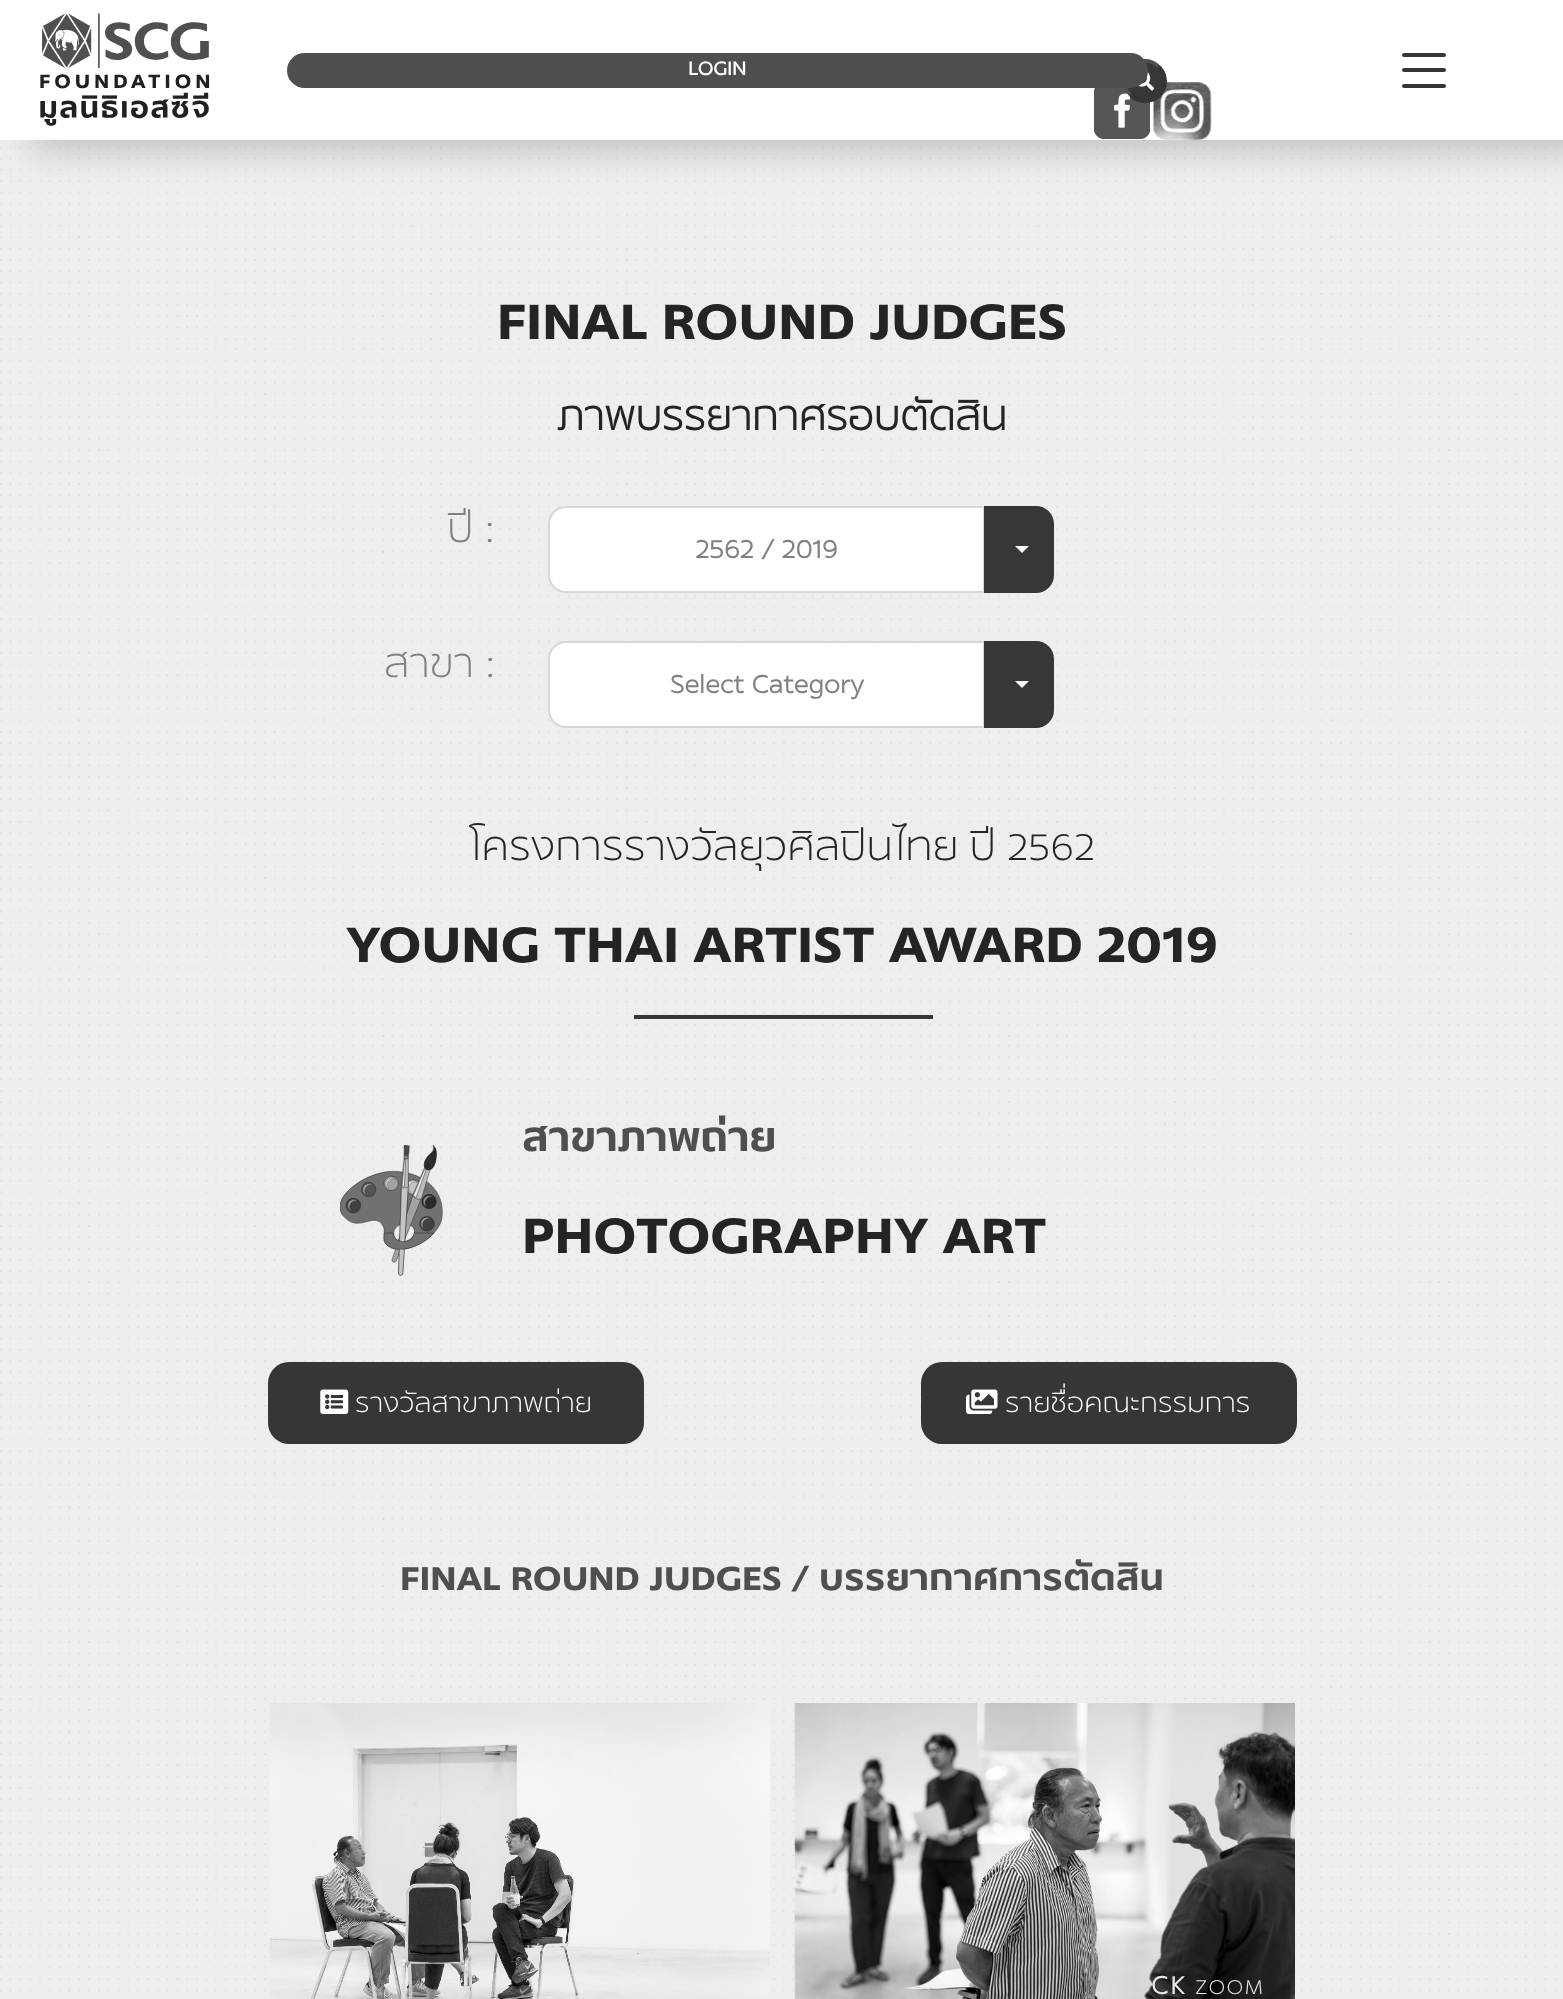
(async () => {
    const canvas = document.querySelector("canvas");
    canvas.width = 1563;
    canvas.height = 1999;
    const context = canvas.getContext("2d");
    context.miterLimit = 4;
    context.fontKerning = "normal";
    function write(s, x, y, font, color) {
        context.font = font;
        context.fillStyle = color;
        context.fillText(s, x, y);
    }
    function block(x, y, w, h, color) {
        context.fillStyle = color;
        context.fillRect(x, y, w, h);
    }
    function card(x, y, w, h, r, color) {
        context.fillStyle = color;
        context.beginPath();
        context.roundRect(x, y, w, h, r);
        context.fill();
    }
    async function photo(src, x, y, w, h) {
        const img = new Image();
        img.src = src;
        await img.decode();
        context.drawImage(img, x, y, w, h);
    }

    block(0, 0, 1563, 1999, "rgb(238, 238, 238)");
    await photo("media/1.png", 0, 146, 1557, 1846);
    context.fillStyle = "rgba(128, 128, 128, 0.44)";
    context.filter = "blur(17.5px)";
    context.beginPath();
    context.rect(32, 9, 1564, 140);
    context.fill();
    context.filter = "none";
    block(0, 0, 1563, 140, "rgb(255, 255, 255)");
    await photo("media/2.png", 40, 13, 170, 113);
    await photo("media/4.png", 1153, 82, 59, 59);
    await photo("media/5.png", 1094, 88, 56, 52);
    context.fillStyle = "rgb(55, 55, 55)";
    context.beginPath();
    context.arc(1145.5, 81.5, 21.5, 0, Math.PI * 2);
    context.fill();
    context.beginPath();
    context.moveTo(1158.5, 66.5);
    context.bezierCurveTo(1172.5, 80.5, 1160, 104.5, 1140.5, 100.5);
    context.bezierCurveTo(1136.5, 100, 1133, 98, 1130.5, 95);
    context.strokeStyle = "rgb(53, 53, 53)";
    context.lineWidth = 3.5;
    context.stroke();
    context.beginPath();
    context.moveTo(1130.5, 95);
    context.bezierCurveTo(1116.5, 81, 1129, 57.5, 1148.5, 61);
    context.bezierCurveTo(1152.5, 62, 1156, 64, 1158.5, 66.5);
    context.strokeStyle = "rgb(80, 80, 80)";
    context.stroke();
    await photo("media/3.png", 1138, 71, 17, 20);
    card(287, 53, 861, 35, 17.5, "rgb(79, 79, 79)");
    write("LOGIN", 688, 75, "bold 21px 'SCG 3'", "rgb(255, 255, 255)");
    card(1402, 53, 44, 4, 2, "rgb(54, 54, 54)");
    card(1402, 68, 44, 4, 2, "rgb(54, 54, 54)");
    card(1402, 84, 44, 4, 2, "rgb(54, 54, 54)");
    write("FINAL ROUND JUDGES", 497, 339, "bold 56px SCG", "rgb(36, 36, 36)");
    write("ภาพบรรยากาศรอบตัดสิน", 557, 430, "bold 42px 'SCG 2'", "rgb(36, 36, 36)");
    write("ปี :", 447, 542, "300 42px SCG", "rgb(128, 128, 128)");
    context.fillStyle = "rgb(255, 255, 255)";
    context.beginPath();
    context.roundRect(549, 507, 435, 85, [17, 0, 0, 17]);
    context.fill();
    context.strokeStyle = "rgb(215, 215, 215)";
    context.lineWidth = 2;
    context.stroke();
    write("2562 / 2019", 695, 558, "bold 28px 'SCG 2'", "rgb(128, 128, 128)");
    context.fillStyle = "rgb(55, 55, 55)";
    context.beginPath();
    context.roundRect(985, 507, 68, 85, [0, 17, 17, 0]);
    context.fill();
    context.strokeStyle = "rgb(55, 55, 55)";
    context.stroke();
    context.fillStyle = "rgb(249, 249, 249)";
    context.beginPath();
    context.moveTo(1015, 546);
    context.lineTo(1029, 546);
    context.lineTo(1022, 553);
    context.closePath();
    context.fill();
    write("สาขา :", 384, 677, "300 42px SCG", "rgb(128, 128, 128)");
    context.fillStyle = "rgb(255, 255, 255)";
    context.beginPath();
    context.roundRect(549, 642, 435, 85, [17, 0, 0, 17]);
    context.fill();
    context.strokeStyle = "rgb(215, 215, 215)";
    context.stroke();
    write("Select Category", 670, 693, "bold 28px 'SCG 2'", "rgb(128, 128, 128)");
    context.fillStyle = "rgb(55, 55, 55)";
    context.beginPath();
    context.roundRect(985, 642, 68, 85, [0, 17, 17, 0]);
    context.fill();
    context.strokeStyle = "rgb(55, 55, 55)";
    context.stroke();
    context.fillStyle = "rgb(249, 249, 249)";
    context.beginPath();
    context.moveTo(1015, 681);
    context.lineTo(1029, 681);
    context.lineTo(1022, 688);
    context.closePath();
    context.fill();
    write("โครงการรางวัลยุวศิลปินไทย ปี 2562", 469, 860, "300 42px SCG", "rgb(36, 36, 36)");
    write("YOUNG THAI ARTIST AWARD 2019", 346, 962, "bold 56px SCG", "rgb(36, 36, 36)");
    block(634, 1015, 299, 4, "rgb(54, 54, 54)");
    await photo("media/6.png", 340, 1145, 103, 131);
    write("สาขาภาพถ่าย", 522, 1151, "bold 42px SCG", "rgb(79, 79, 79)");
    write("PHOTOGRAPHY ART", 522, 1253, "bold 56px SCG", "rgb(36, 36, 36)");
    card(268, 1362, 376, 82, 21, "rgb(54, 54, 54)");
    await photo("media/7.png", 320, 1389, 29, 25);
    write("รางวัลสาขาภาพถ่าย", 355, 1412, "300 28px SCG", "rgb(255, 255, 255)");
    card(921, 1362, 376, 82, 21, "rgb(54, 54, 54)");
    await photo("media/8.png", 966, 1389, 32, 25);
    write("รายชื่อคณะกรรมการ", 1005, 1412, "300 28px SCG", "rgb(255, 255, 255)");
    write("FINAL ROUND JUDGES / บรรยากาศการตัดสิน", 400, 1590, "bold 37.5px SCG", "rgb(79, 79, 79)");
    await photo("media/9.png", 269, 1703, 501, 296);
    await photo("media/10.png", 794, 1703, 501, 296);
    context.letterSpacing = "2px";
    write("CK", 1151, 1994, "bold 28px 'SCG 2'", "rgb(231, 231, 231)");
    context.letterSpacing = "1.5px";
    write("ZOOM", 1195, 1994, "300 22.5px SCG", "rgb(231, 231, 231)");
})();
